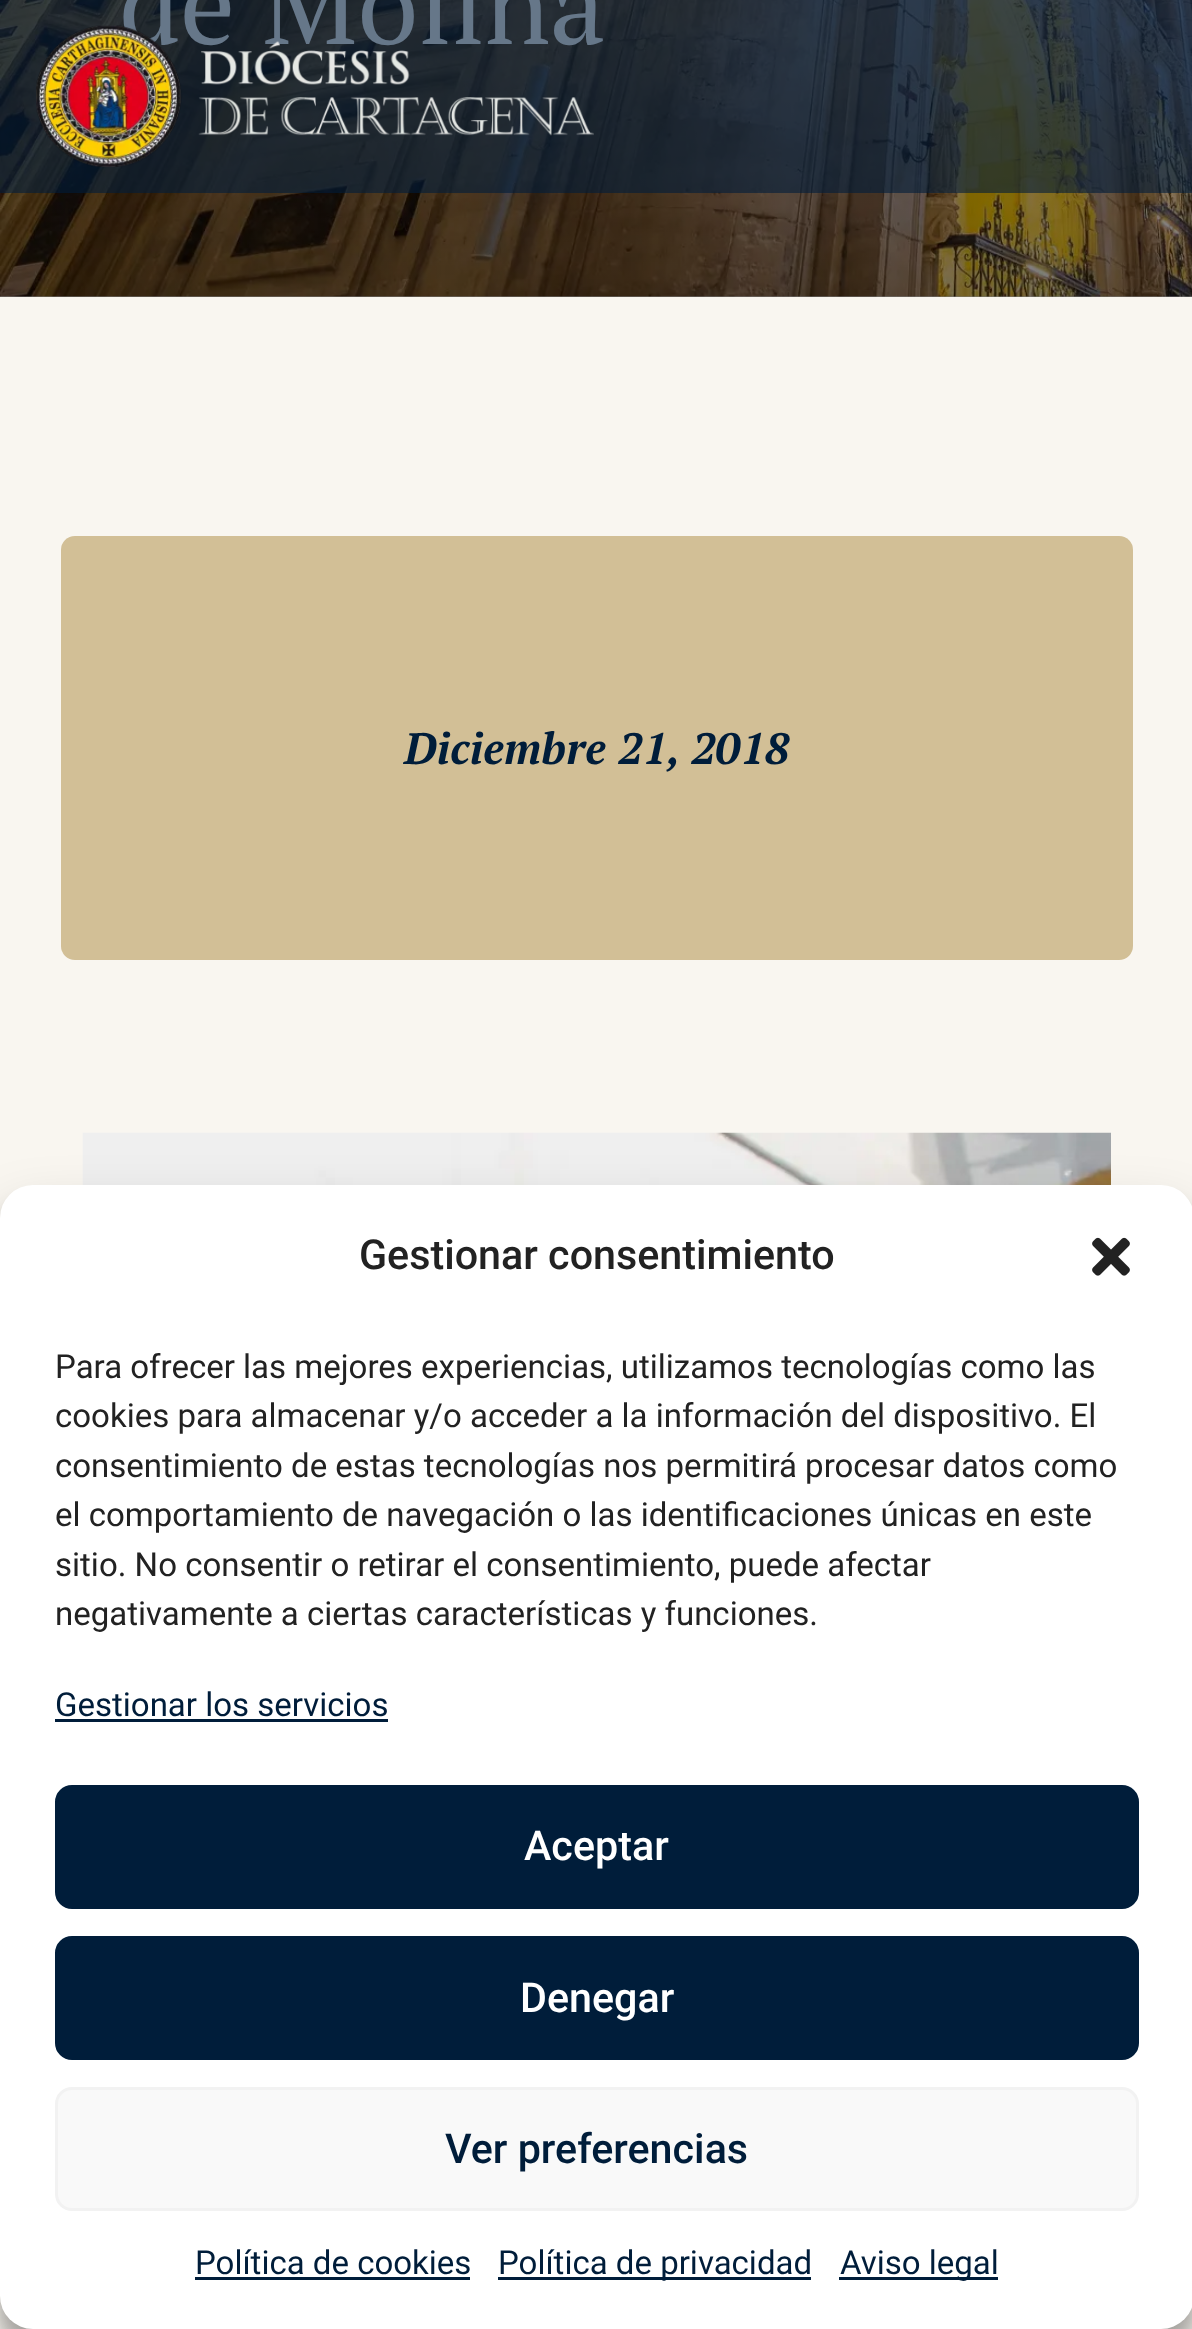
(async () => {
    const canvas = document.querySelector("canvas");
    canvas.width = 1192;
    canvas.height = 2329;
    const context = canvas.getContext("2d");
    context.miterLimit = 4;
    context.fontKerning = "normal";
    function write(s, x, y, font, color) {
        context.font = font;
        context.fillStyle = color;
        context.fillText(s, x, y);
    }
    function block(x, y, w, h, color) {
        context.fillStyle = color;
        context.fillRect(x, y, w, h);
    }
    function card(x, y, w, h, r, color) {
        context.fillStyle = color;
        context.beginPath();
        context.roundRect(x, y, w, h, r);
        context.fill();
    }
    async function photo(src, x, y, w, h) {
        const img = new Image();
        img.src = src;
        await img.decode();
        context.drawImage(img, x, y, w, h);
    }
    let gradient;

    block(0, 0, 1192, 2329, "rgb(255, 255, 255)");
    await photo("media/2.png", 0, 0, 1192, 297);
    gradient = context.createLinearGradient(597, -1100, 597, 297);
    gradient.addColorStop(0, "rgba(0, 0, 0, 0)");
    gradient.addColorStop(1, "rgba(0, 0, 0, 0.51)");
    context.fillStyle = gradient;
    context.fillRect(0, 0, 1192, 297);
    write("de Molina", 119, 44, "110px PT Serif", "rgb(255, 255, 255)");
    block(0, 0, 1192, 193, "rgba(0, 29, 58, 0.6)");
    await photo("media/1.png", 36, 25, 558, 142);
    block(0, 297, 1192, 2032, "rgb(249, 246, 240)");
    card(61, 536, 1072, 424, 14, "rgb(210, 191, 150)");
    write("Diciembre 21, 2018", 404, 764, "italic bold 44px PT Serif", "rgb(0, 29, 58)");
    await photo("media/3.png", 82, 1132, 1029, 53);
    context.fillStyle = "rgba(0, 0, 0, 0.23)";
    context.filter = "blur(8px)";
    context.beginPath();
    context.roundRect(0, 1202, 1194, 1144, 33);
    context.fill();
    context.filter = "none";
    context.fillStyle = "rgba(0, 0, 0, 0.19)";
    context.filter = "blur(27.5px)";
    context.beginPath();
    context.roundRect(0, 1213, 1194, 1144, 33);
    context.fill();
    context.filter = "none";
    card(0, 1185, 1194, 1144, 33, "rgb(255, 255, 255)");
    write("Gestionar consentimiento", 359, 1269, "500 41.25px Roboto", "rgb(34, 34, 34)");
    await photo("media/4.png", 1092, 1237, 38, 39);
    write("Para ofrecer las mejores experiencias, utilizamos tecnologías como las", 55, 1378, "33px Roboto", "rgb(34, 34, 34)");
    write("cookies para almacenar y/o acceder a la información del dispositivo. El", 55, 1427, "33px Roboto", "rgb(34, 34, 34)");
    write("consentimiento de estas tecnologías nos permitirá procesar datos como", 55, 1477, "33px Roboto", "rgb(34, 34, 34)");
    write("el comportamiento de navegación o las identificaciones únicas en este", 55, 1526, "33px Roboto", "rgb(34, 34, 34)");
    write("sitio. No consentir o retirar el consentimiento, puede afectar", 55, 1576, "33px Roboto", "rgb(34, 34, 34)");
    write("negativamente a ciertas características y funciones.", 55, 1625, "33px Roboto", "rgb(34, 34, 34)");
    write("Gestionar los servicios", 55, 1716, "33px Roboto", "rgb(0, 29, 58)");
    block(55, 1719, 333, 3, "rgb(0, 29, 58)");
    context.beginPath();
    context.roundRect(56.5, 1786.5, 1081, 121, 15.5);
    context.fill();
    context.strokeStyle = "rgb(0, 29, 58)";
    context.lineWidth = 3;
    context.stroke();
    write("Aceptar", 524, 1860, "500 41.25px Roboto", "rgb(255, 255, 255)");
    context.fillStyle = "rgb(0, 29, 58)";
    context.beginPath();
    context.roundRect(56.5, 1937.5, 1081, 121, 15.5);
    context.fill();
    context.stroke();
    write("Denegar", 520, 2012, "500 41.25px Roboto", "rgb(255, 255, 255)");
    context.fillStyle = "rgb(249, 249, 249)";
    context.beginPath();
    context.roundRect(56.5, 2088.5, 1081, 121, 15.5);
    context.fill();
    context.strokeStyle = "rgb(242, 242, 242)";
    context.stroke();
    write("Ver preferencias", 445, 2163, "500 41.25px Roboto", "rgb(0, 29, 58)");
    write("Política de cookies", 195, 2274, "33px Roboto", "rgb(0, 29, 58)");
    block(195, 2277, 275, 3, "rgb(0, 29, 58)");
    block(498, 2277, 313, 3, "rgb(0, 29, 58)");
    write("Política de privacidad", 498, 2274, "33px Roboto", "rgb(0, 29, 58)");
    block(839, 2277, 159, 3, "rgb(0, 29, 58)");
    write("Aviso legal", 840, 2274, "33px Roboto", "rgb(0, 29, 58)");
})();
